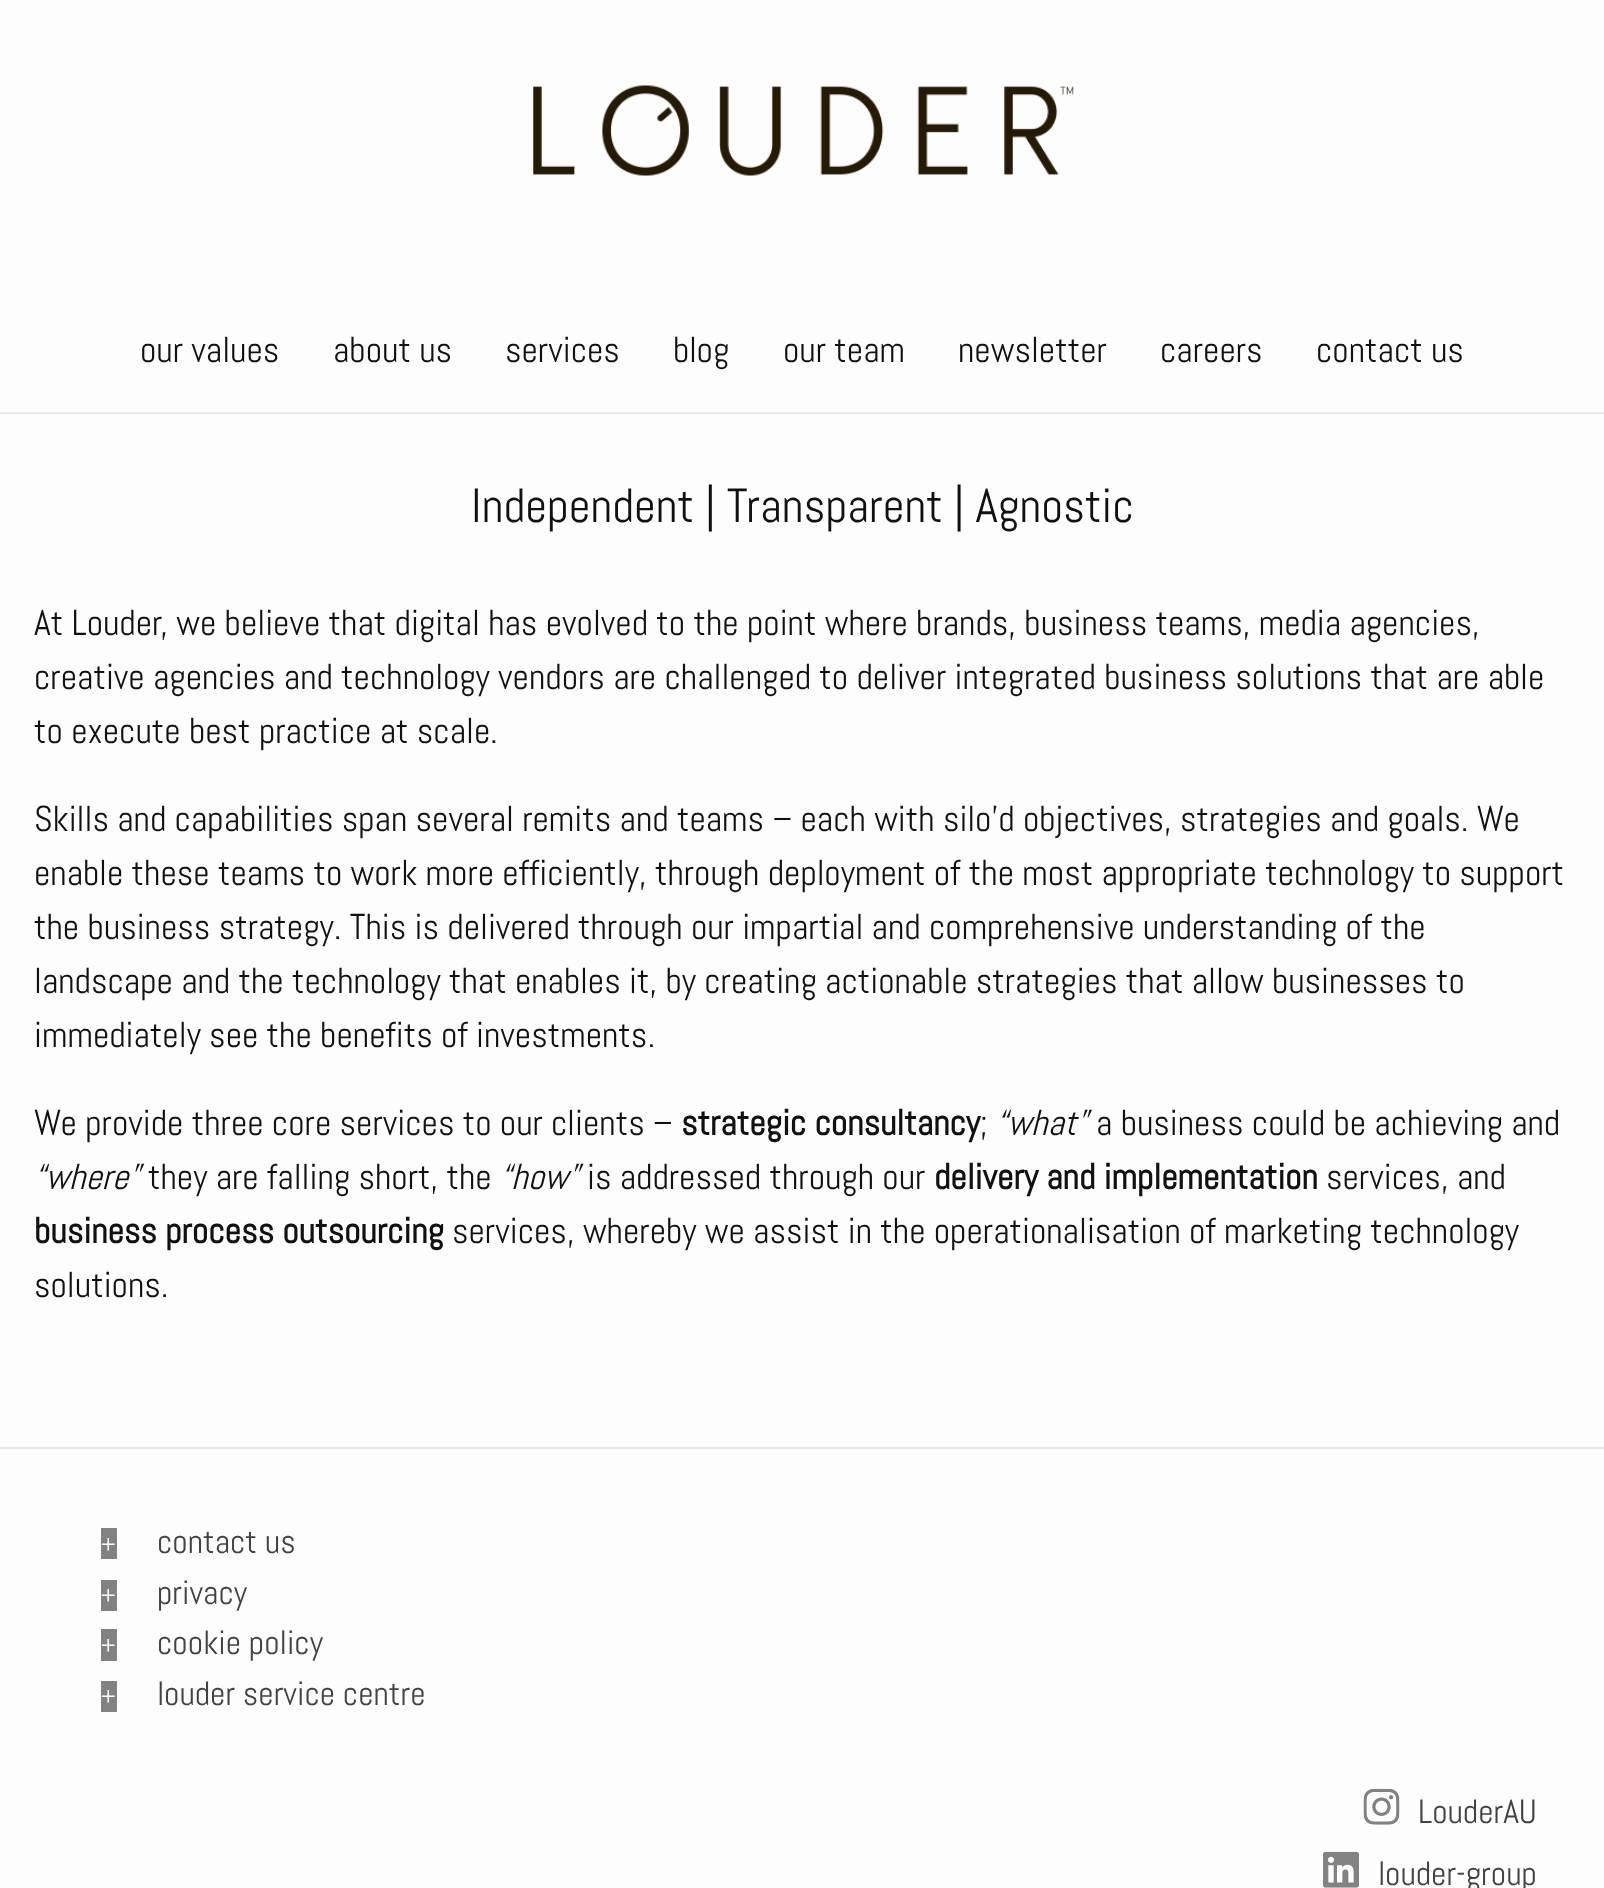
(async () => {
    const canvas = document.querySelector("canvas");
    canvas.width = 1604;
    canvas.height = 1888;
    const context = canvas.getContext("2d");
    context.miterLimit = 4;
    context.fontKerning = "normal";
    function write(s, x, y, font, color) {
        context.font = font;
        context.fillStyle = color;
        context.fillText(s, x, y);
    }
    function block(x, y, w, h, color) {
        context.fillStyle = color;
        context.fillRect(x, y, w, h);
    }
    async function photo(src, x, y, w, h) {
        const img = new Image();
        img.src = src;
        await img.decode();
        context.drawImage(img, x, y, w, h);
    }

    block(0, 0, 1604, 1888, "rgb(253, 253, 253)");
    block(0, 412, 1604, 2, "rgb(232, 232, 232)");
    await photo("media/1.png", 533, 85, 541, 91);
    write("our values", 140, 362, "36px Abel", "rgb(17, 17, 17)");
    write("about us", 333, 362, "36px Abel", "rgb(17, 17, 17)");
    write("services", 505, 362, "36px Abel", "rgb(17, 17, 17)");
    write("blog", 673, 362, "36px Abel", "rgb(17, 17, 17)");
    write("our team", 783, 362, "36px Abel", "rgb(17, 17, 17)");
    write("newsletter", 958, 362, "36px Abel", "rgb(17, 17, 17)");
    write("careers", 1160, 362, "36px Abel", "rgb(17, 17, 17)");
    write("contact us", 1316, 362, "36px Abel", "rgb(17, 17, 17)");
    write("Independent | Transparent | Agnostic", 471, 522, "47.9px Abel", "rgb(17, 17, 17)");
    write("At Louder, we believe that digital has evolved to the point where brands, business teams, media agencies,", 34, 635, "36px Abel", "rgb(17, 17, 17)");
    write("creative agencies and technology vendors are challenged to deliver integrated business solutions that are able", 34, 689, "36px Abel", "rgb(17, 17, 17)");
    write("to execute best practice at scale.", 34, 743, "36px Abel", "rgb(17, 17, 17)");
    write("Skills and capabilities span several remits and teams – each with silo’d objectives, strategies and goals. We", 34, 831, "36px Abel", "rgb(17, 17, 17)");
    write("enable these teams to work more efficiently, through deployment of the most appropriate technology to support", 34, 885, "36px Abel", "rgb(17, 17, 17)");
    write("the business strategy. This is delivered through our impartial and comprehensive understanding of the", 34, 939, "36px Abel", "rgb(17, 17, 17)");
    write("landscape and the technology that enables it, by creating actionable strategies that allow businesses to", 34, 993, "36px Abel", "rgb(17, 17, 17)");
    write("immediately see the benefits of investments.", 34, 1047, "36px Abel", "rgb(17, 17, 17)");
    write("We provide three core services to our clients –", 34, 1135, "36px Abel", "rgb(17, 17, 17)");
    write("strategic consultancy", 681, 1135, "bold 36px Abel", "rgb(17, 17, 17)");
    write(";", 980, 1135, "36px Abel", "rgb(17, 17, 17)");
    write("“what”", 996, 1135, "italic 36px Abel", "rgb(17, 17, 17)");
    write("a business could be achieving and", 1096, 1135, "36px Abel", "rgb(17, 17, 17)");
    write("“where”", 34, 1189, "italic 36px Abel", "rgb(17, 17, 17)");
    write("they are falling short, the", 148, 1189, "36px Abel", "rgb(17, 17, 17)");
    write("“how”", 500, 1189, "italic 36px Abel", "rgb(17, 17, 17)");
    write("is addressed through our", 587, 1189, "36px Abel", "rgb(17, 17, 17)");
    write("delivery and implementation", 934, 1189, "bold 36px Abel", "rgb(17, 17, 17)");
    write("services, and", 1326, 1189, "36px Abel", "rgb(17, 17, 17)");
    write("business process outsourcing", 34, 1243, "bold 36px Abel", "rgb(17, 17, 17)");
    write("services, whereby we assist in the operationalisation of marketing technology", 452, 1243, "36px Abel", "rgb(17, 17, 17)");
    write("solutions.", 34, 1297, "36px Abel", "rgb(17, 17, 17)");
    block(0, 1447, 1604, 2, "rgb(232, 232, 232)");
    block(101, 1528, 16, 31, "rgb(130, 130, 130)");
    write("+", 101, 1553, "25px Abel", "rgb(253, 253, 253)");
    write("contact us", 157, 1553, "33.75px Abel", "rgb(66, 66, 66)");
    block(101, 1580, 16, 31, "rgb(130, 130, 130)");
    write("+", 101, 1604, "25px Abel", "rgb(253, 253, 253)");
    write("privacy", 157, 1604, "33.75px Abel", "rgb(66, 66, 66)");
    block(101, 1629, 16, 32, "rgb(130, 130, 130)");
    write("+", 101, 1654, "25px Abel", "rgb(253, 253, 253)");
    write("cookie policy", 157, 1654, "33.75px Abel", "rgb(66, 66, 66)");
    block(101, 1681, 16, 31, "rgb(130, 130, 130)");
    write("+", 101, 1705, "25px Abel", "rgb(253, 253, 253)");
    write("louder service centre", 157, 1705, "33.75px Abel", "rgb(66, 66, 66)");
    await photo("media/2.png", 1363, 1788, 37, 37);
    write("LouderAU", 1418, 1823, "33.75px Abel", "rgb(66, 66, 66)");
    await photo("media/3.png", 1323, 1851, 36, 37);
    write("louder-group", 1378, 1885, "33.75px Abel", "rgb(66, 66, 66)");
})();
